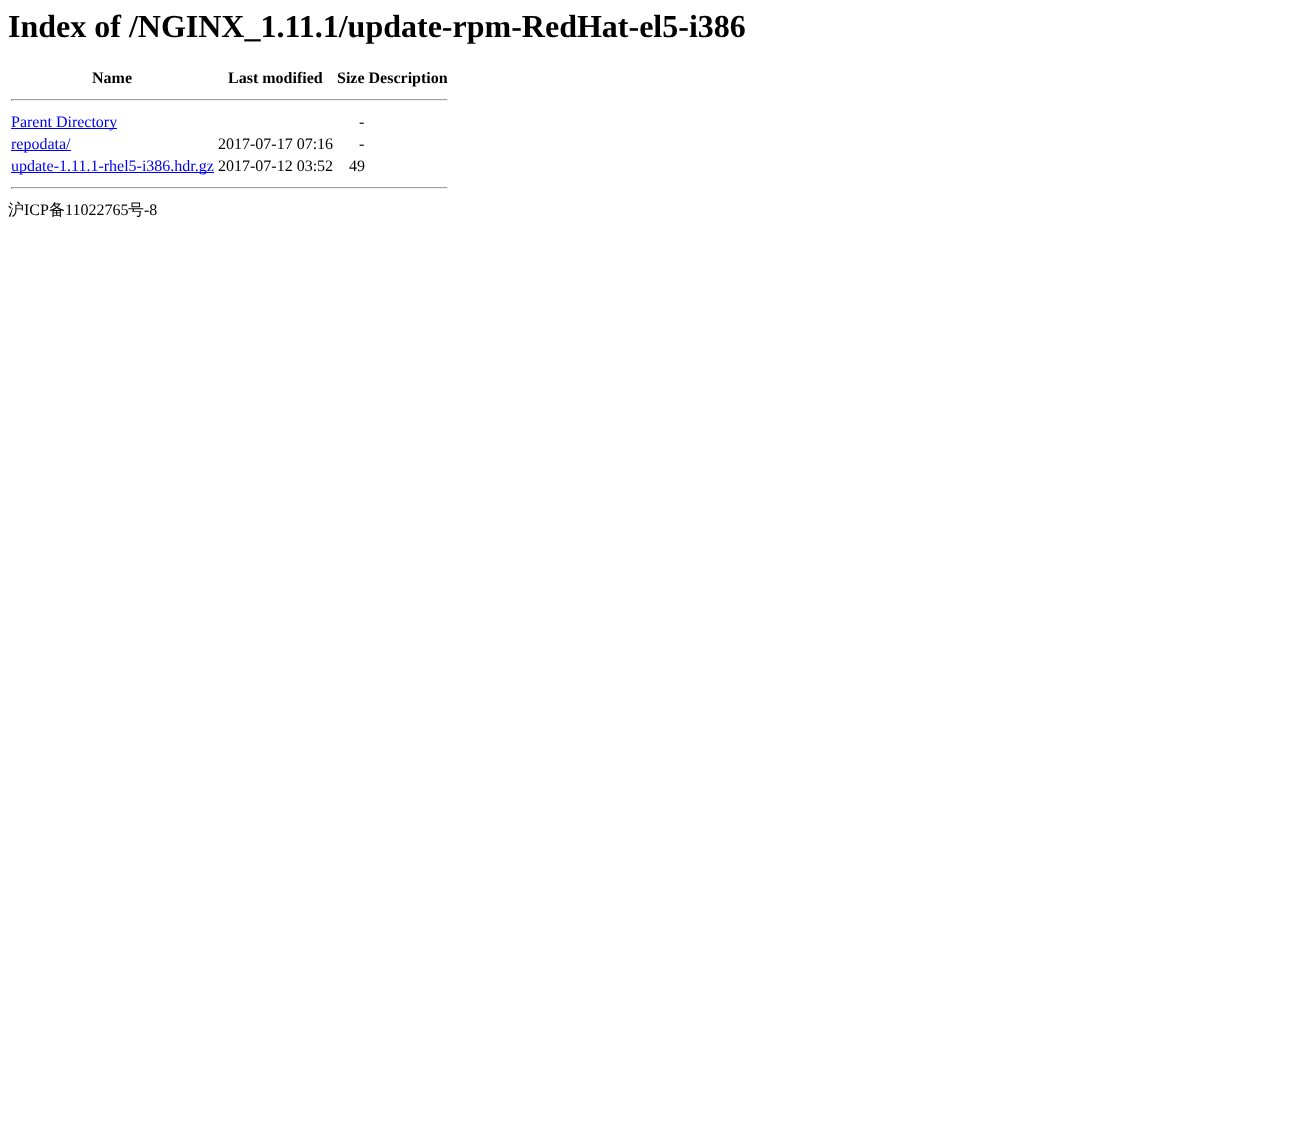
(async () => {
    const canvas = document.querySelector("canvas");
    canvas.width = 1289;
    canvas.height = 1124;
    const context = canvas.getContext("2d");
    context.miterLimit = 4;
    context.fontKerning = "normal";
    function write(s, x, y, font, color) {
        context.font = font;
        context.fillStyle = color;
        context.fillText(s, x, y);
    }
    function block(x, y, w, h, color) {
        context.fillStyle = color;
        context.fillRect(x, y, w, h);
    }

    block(0, 0, 1289, 1124, "rgb(255, 255, 255)");
    write("Index of /NGINX_1.11.1/update-rpm-RedHat-el5-i386", 8, 37, "bold 32px Liberation Serif", "rgb(0, 0, 0)");
    write("Name", 92, 83, "bold 16px Liberation Serif", "rgb(0, 0, 0)");
    write("Last modified", 228, 83, "bold 16px Liberation Serif", "rgb(0, 0, 0)");
    write("Size Description", 337, 83, "bold 16px Liberation Serif", "rgb(0, 0, 0)");
    block(11, 99, 437, 1, "rgb(159, 159, 159)");
    block(447, 99, 1, 2, "rgb(238, 238, 238)");
    block(11, 100, 437, 1, "rgb(238, 238, 238)");
    block(11, 99, 1, 2, "rgb(159, 159, 159)");
    block(11, 128, 106, 1, "rgb(0, 0, 238)");
    write("Parent Directory", 11, 127, "16px Liberation Serif", "rgb(0, 0, 238)");
    write("-", 359, 127, "16px Liberation Serif", "rgb(0, 0, 0)");
    block(11, 150, 60, 1, "rgb(0, 0, 238)");
    write("repodata/", 11, 149, "16px Liberation Serif", "rgb(0, 0, 238)");
    write("2017-07-17 07:16", 218, 149, "16px Liberation Serif", "rgb(0, 0, 0)");
    write("-", 359, 149, "16px Liberation Serif", "rgb(0, 0, 0)");
    block(11, 172, 203, 1, "rgb(0, 0, 238)");
    write("update-1.11.1-rhel5-i386.hdr.gz", 11, 171, "16px Liberation Serif", "rgb(0, 0, 238)");
    write("2017-07-12 03:52", 218, 171, "16px Liberation Serif", "rgb(0, 0, 0)");
    write("49", 349, 171, "16px Liberation Serif", "rgb(0, 0, 0)");
    block(11, 187, 437, 1, "rgb(159, 159, 159)");
    block(447, 187, 1, 2, "rgb(238, 238, 238)");
    block(11, 188, 437, 1, "rgb(238, 238, 238)");
    block(11, 187, 1, 2, "rgb(159, 159, 159)");
    write("沪", 8, 215, "500 16px WenQuanYi Zen Hei", "rgb(0, 0, 0)");
    write("ICP", 24, 215, "16px Liberation Serif", "rgb(0, 0, 0)");
    write("备", 49, 215, "500 16px WenQuanYi Zen Hei", "rgb(0, 0, 0)");
    write("11022765", 65, 215, "16px Liberation Serif", "rgb(0, 0, 0)");
    write("号", 128, 215, "500 16px WenQuanYi Zen Hei", "rgb(0, 0, 0)");
    write("-8", 144, 215, "16px Liberation Serif", "rgb(0, 0, 0)");
})();
